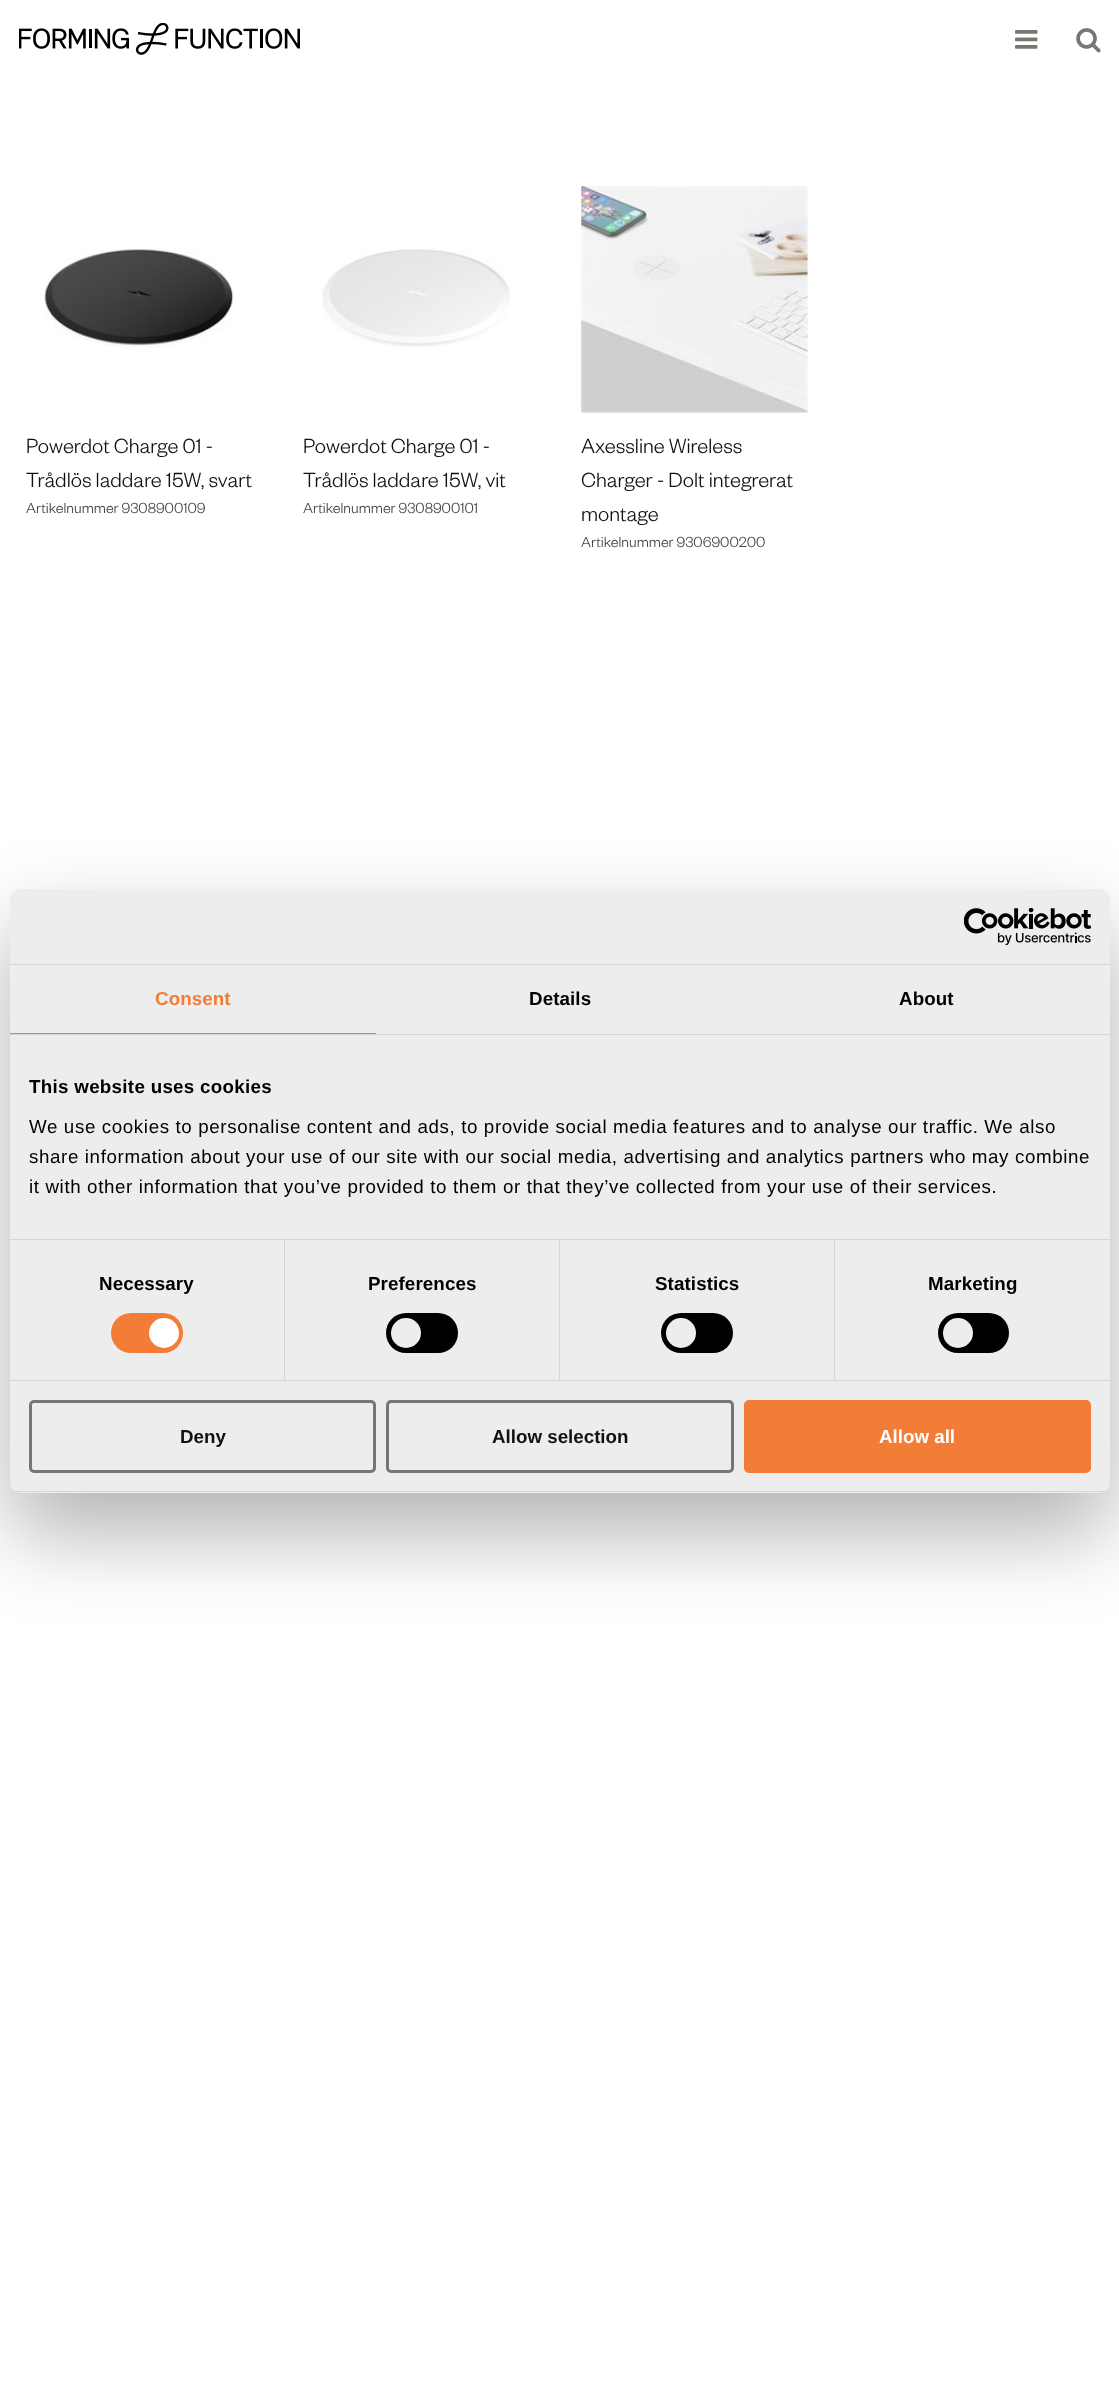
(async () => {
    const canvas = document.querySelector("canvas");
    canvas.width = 1119;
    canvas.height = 2381;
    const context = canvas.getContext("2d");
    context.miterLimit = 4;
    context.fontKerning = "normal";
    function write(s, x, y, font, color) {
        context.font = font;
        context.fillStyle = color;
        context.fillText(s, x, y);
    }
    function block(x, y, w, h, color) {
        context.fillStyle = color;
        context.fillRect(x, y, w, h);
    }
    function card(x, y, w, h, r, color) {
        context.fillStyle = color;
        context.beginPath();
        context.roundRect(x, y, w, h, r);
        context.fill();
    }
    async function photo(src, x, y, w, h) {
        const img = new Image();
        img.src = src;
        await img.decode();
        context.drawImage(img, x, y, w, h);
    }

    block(0, 0, 1119, 2381, "rgb(255, 255, 255)");
    await photo("media/1.png", 19, 23, 281, 32);
    await photo("media/2.png", 1015, 30, 23, 19);
    await photo("media/3.png", 1076, 28, 25, 25);
    await photo("media/4.png", 44, 249, 190, 98);
    write("Powerdot Charge 01 -", 26, 453, "300 22.5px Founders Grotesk", "rgb(17, 17, 17)");
    write("Trådlös laddare 15W, svart", 26, 487, "300 22.5px Founders Grotesk", "rgb(17, 17, 17)");
    write("Artikelnummer 9308900109", 26, 513, "300 16px Founders Grotesk", "rgb(68, 68, 68)");
    await photo("media/5.png", 322, 249, 188, 98);
    write("Powerdot Charge 01 -", 303, 453, "300 22.5px Founders Grotesk", "rgb(17, 17, 17)");
    write("Trådlös laddare 15W, vit", 303, 487, "300 22.5px Founders Grotesk", "rgb(17, 17, 17)");
    write("Artikelnummer 9308900101", 303, 513, "300 16px Founders Grotesk", "rgb(68, 68, 68)");
    await photo("media/6.png", 581, 186, 227, 227);
    write("Axessline Wireless", 581, 453, "300 22.5px Founders Grotesk", "rgb(17, 17, 17)");
    write("Charger - Dolt integrerat", 581, 487, "300 22.5px Founders Grotesk", "rgb(17, 17, 17)");
    write("montage", 581, 521, "300 22.5px Founders Grotesk", "rgb(17, 17, 17)");
    write("Artikelnummer 9306900200", 581, 547, "300 16px Founders Grotesk", "rgb(68, 68, 68)");
    context.fillStyle = "rgba(0, 0, 0, 0.3)";
    context.filter = "blur(42.5px)";
    context.beginPath();
    context.roundRect(10, 929, 1100, 604, 10);
    context.fill();
    context.filter = "none";
    card(10, 889, 1100, 604, 10, "rgb(237, 237, 237)");
    block(10, 964, 1100, 1, "rgb(214, 214, 214)");
    await photo("media/7.png", 964, 908, 127, 37);
    block(10, 1034, 1100, 1, "rgb(214, 214, 214)");
    block(10, 1033, 366, 1, "rgb(243, 125, 55)");
    context.letterSpacing = "0.1px";
    write("Consent", 155, 1005, "bold 18.75px Liberation Sans", "rgb(243, 125, 55)");
    write("Details", 529, 1005, "bold 18.75px Liberation Sans", "rgb(0, 0, 0)");
    write("About", 899, 1005, "bold 18.75px Liberation Sans", "rgb(0, 0, 0)");
    block(10, 1239, 1100, 1, "rgb(214, 214, 214)");
    context.letterSpacing = "0.3px";
    write("This website uses cookies", 29, 1093, "bold 18.75px Liberation Sans", "rgb(0, 0, 0)");
    context.letterSpacing = "0.62px";
    write("We use cookies to personalise content and ads, to provide social media features and to analyse our traffic. We also", 29, 1133, "18.75px Liberation Sans", "rgb(0, 0, 0)");
    write("share information about your use of our site with our social media, advertising and analytics partners who may combine", 29, 1163, "18.75px Liberation Sans", "rgb(0, 0, 0)");
    write("it with other information that you’ve provided to them or that they’ve collected from your use of their services.", 29, 1193, "18.75px Liberation Sans", "rgb(0, 0, 0)");
    block(10, 1380, 1100, 1, "rgb(214, 214, 214)");
    block(284, 1240, 1, 140, "rgb(214, 214, 214)");
    context.letterSpacing = "0.1px";
    write("Necessary", 99, 1290, "bold 18.75px Liberation Sans", "rgb(0, 0, 0)");
    card(111, 1313, 72, 40, 20, "rgb(243, 125, 55)");
    context.fillStyle = "rgb(255, 255, 255)";
    context.beginPath();
    context.arc(164, 1333, 15, 0, Math.PI * 2);
    context.fill();
    block(559, 1240, 1, 140, "rgb(214, 214, 214)");
    write("Preferences", 368, 1290, "bold 18.75px Liberation Sans", "rgb(0, 0, 0)");
    card(386, 1313, 72, 40, 20, "rgb(0, 0, 0)");
    context.fillStyle = "rgb(237, 237, 237)";
    context.beginPath();
    context.arc(406, 1333, 15, 0, Math.PI * 2);
    context.fill();
    block(834, 1240, 1, 140, "rgb(214, 214, 214)");
    write("Statistics", 655, 1290, "bold 18.75px Liberation Sans", "rgb(0, 0, 0)");
    card(661, 1313, 72, 40, 20, "rgb(0, 0, 0)");
    context.fillStyle = "rgb(237, 237, 237)";
    context.beginPath();
    context.arc(681, 1333, 15, 0, Math.PI * 2);
    context.fill();
    write("Marketing", 928, 1290, "bold 18.75px Liberation Sans", "rgb(0, 0, 0)");
    card(938, 1313, 71, 40, 20, "rgb(0, 0, 0)");
    context.fillStyle = "rgb(237, 237, 237)";
    context.beginPath();
    context.arc(958, 1333, 15, 0, Math.PI * 2);
    context.fill();
    context.save();
    context.beginPath();
    context.roundRect(10, 889, 1100, 604, 10);
    context.clip();
    block(10, 1491, 1100, 1, "rgb(214, 214, 214)");
    context.restore();
    context.beginPath();
    context.roundRect(30.5, 1401.5, 344, 70, 3.5);
    context.strokeStyle = "rgb(121, 118, 113)";
    context.lineWidth = 3;
    context.stroke();
    context.letterSpacing = "0px";
    write("Deny", 180, 1443, "bold 18.75px Liberation Sans", "rgb(17, 17, 17)");
    context.beginPath();
    context.roundRect(387.5, 1401.5, 345, 70, 3.5);
    context.stroke();
    write("Allow selection", 492, 1443, "bold 18.75px Liberation Sans", "rgb(17, 17, 17)");
    context.fillStyle = "rgb(243, 125, 55)";
    context.beginPath();
    context.roundRect(745.5, 1401.5, 344, 70, 3.5);
    context.fill();
    context.strokeStyle = "rgb(243, 125, 55)";
    context.stroke();
    write("Allow all", 879, 1443, "bold 18.75px Liberation Sans", "rgb(255, 255, 255)");
})();
